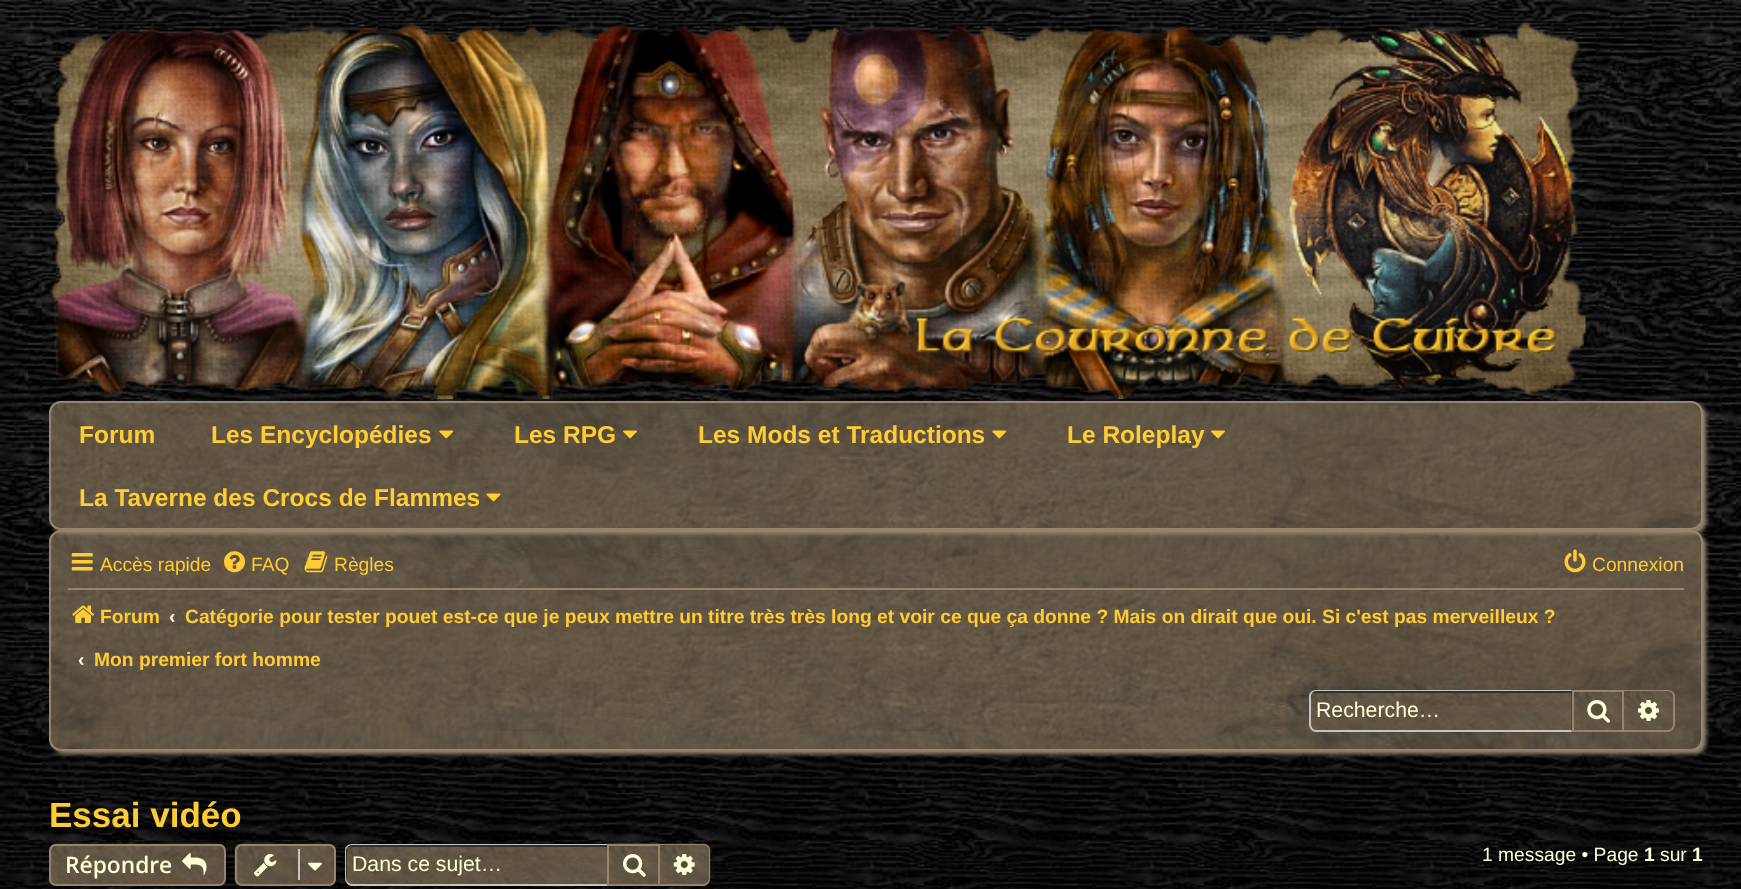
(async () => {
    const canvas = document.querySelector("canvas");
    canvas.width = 1741;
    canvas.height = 889;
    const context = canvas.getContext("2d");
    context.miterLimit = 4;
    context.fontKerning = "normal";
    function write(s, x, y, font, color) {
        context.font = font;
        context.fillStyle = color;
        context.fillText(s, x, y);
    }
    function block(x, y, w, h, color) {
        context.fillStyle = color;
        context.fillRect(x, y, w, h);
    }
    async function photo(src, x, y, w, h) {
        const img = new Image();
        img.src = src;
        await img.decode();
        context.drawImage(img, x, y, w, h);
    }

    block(0, 0, 1741, 889, "rgb(255, 255, 255)");
    await photo("media/1.png", 0, 0, 1741, 889);
    await photo("media/2.png", 49, 22, 1537, 377);
    context.fillStyle = "rgb(150, 132, 110)";
    context.filter = "blur(2px)";
    context.beginPath();
    context.roundRect(53, 534, 1653, 220, 12);
    context.fill();
    context.filter = "none";
    await photo("media/9.png", 49, 530, 1654, 221);
    context.beginPath();
    context.roundRect(50, 531, 1652, 219, 11);
    context.strokeStyle = "rgb(150, 132, 110)";
    context.lineWidth = 2;
    context.stroke();
    context.filter = "blur(2px)";
    context.beginPath();
    context.roundRect(53, 404, 1653, 130, 12);
    context.fill();
    context.filter = "none";
    await photo("media/3.png", 49, 400, 1654, 131);
    context.beginPath();
    context.roundRect(50, 402, 1652, 127, 11);
    context.stroke();
    write("Forum", 79, 443, "bold 24.5px Liberation Sans", "rgb(255, 204, 51)");
    write("Les Encyclopédies", 211, 443, "bold 24.5px Liberation Sans", "rgb(255, 204, 51)");
    await photo("media/4.png", 439, 430, 15, 9);
    write("Les RPG", 514, 443, "bold 24.5px Liberation Sans", "rgb(255, 204, 51)");
    await photo("media/5.png", 623, 430, 14, 9);
    write("Les Mods et Traductions", 698, 443, "bold 24.5px Liberation Sans", "rgb(255, 204, 51)");
    await photo("media/6.png", 992, 430, 15, 9);
    write("Le Roleplay", 1067, 443, "bold 24.5px Liberation Sans", "rgb(255, 204, 51)");
    await photo("media/7.png", 1211, 430, 14, 9);
    write("La Taverne des Crocs de Flammes", 79, 506, "bold 24.5px Liberation Sans", "rgb(255, 204, 51)");
    await photo("media/8.png", 486, 493, 15, 9);
    await photo("media/10.png", 71, 553, 22, 18);
    write("Accès rapide", 100, 571, "19.25px Liberation Sans", "rgb(255, 204, 51)");
    await photo("media/11.png", 224, 551, 21, 22);
    write("FAQ", 251, 571, "19.25px Liberation Sans", "rgb(255, 204, 51)");
    await photo("media/12.png", 304, 551, 24, 22);
    write("Règles", 334, 571, "19.25px Liberation Sans", "rgb(255, 204, 51)");
    await photo("media/13.png", 1564, 549, 22, 24);
    write("Connexion", 1592, 571, "19.25px Liberation Sans", "rgb(255, 204, 51)");
    block(68, 588, 1616, 2, "rgb(150, 132, 110)");
    await photo("media/14.png", 72, 605, 23, 18);
    write("Forum", 100, 623, "bold 19.25px Liberation Sans", "rgb(255, 204, 51)");
    write("‹", 169, 623, "bold 19.25px Liberation Sans", "rgb(255, 255, 214)");
    write("Catégorie pour tester pouet est-ce que je peux mettre un titre très très long et voir ce que ça donne ? Mais on dirait que oui. Si c'est pas merveilleux ?", 185, 623, "bold 19.25px Liberation Sans", "rgb(255, 204, 51)");
    write("‹", 78, 666, "bold 19.25px Liberation Sans", "rgb(255, 255, 214)");
    write("Mon premier fort homme", 94, 666, "bold 19.25px Liberation Sans", "rgb(255, 204, 51)");
    context.fillStyle = "rgb(48, 48, 48)";
    context.beginPath();
    context.roundRect(1311, 691, 261, 39, [5, 0, 0, 5]);
    context.fill();
    await photo("media/15.png", 1310, 693, 262, 39);
    context.fillStyle = "rgb(199, 195, 191)";
    context.beginPath();
    context.moveTo(1316, 690);
    context.lineTo(1572, 690);
    context.lineTo(1572, 732);
    context.lineTo(1316, 732);
    context.bezierCurveTo(1312, 732, 1309, 728, 1309, 724);
    context.lineTo(1309, 696);
    context.bezierCurveTo(1309, 693, 1312, 690, 1316, 690);
    context.closePath();
    context.moveTo(1316, 691);
    context.lineTo(1572, 691);
    context.lineTo(1572, 730);
    context.lineTo(1316, 730);
    context.bezierCurveTo(1313, 730, 1311, 727, 1311, 724);
    context.lineTo(1311, 696);
    context.bezierCurveTo(1311, 694, 1313, 691, 1316, 691);
    context.closePath();
    context.fill("evenodd");
    write("Recherche…", 1316, 717, "21.25px Liberation Sans", "rgb(255, 255, 214)");
    await photo("media/16.png", 1571, 689, 53, 43);
    context.strokeRect(1573, 691, 50, 40);
    await photo("media/17.png", 1587, 700, 23, 23);
    await photo("media/18.png", 1624, 689, 51, 42);
    context.fillStyle = "rgb(150, 132, 110)";
    context.beginPath();
    context.moveTo(1624, 690);
    context.lineTo(1668, 690);
    context.bezierCurveTo(1672, 690, 1675, 693, 1675, 696);
    context.lineTo(1675, 724);
    context.bezierCurveTo(1675, 728, 1672, 732, 1668, 732);
    context.lineTo(1624, 732);
    context.closePath();
    context.moveTo(1624, 691);
    context.lineTo(1668, 691);
    context.bezierCurveTo(1671, 691, 1673, 694, 1673, 696);
    context.lineTo(1673, 724);
    context.bezierCurveTo(1673, 727, 1671, 730, 1668, 730);
    context.lineTo(1624, 730);
    context.closePath();
    context.fill("evenodd");
    await photo("media/19.png", 1638, 700, 21, 21);
    write("Essai vidéo", 49, 827, "bold 35px Liberation Sans", "rgb(255, 204, 51)");
    await photo("media/20.png", 49, 843, 177, 43);
    context.beginPath();
    context.roundRect(50, 845, 175, 40, 6);
    context.stroke();
    write("Répondre", 65, 873, "600 22.75px Open Sans", "rgb(255, 255, 214)");
    await photo("media/21.png", 182, 853, 25, 22);
    await photo("media/22.png", 234, 843, 102, 43);
    context.beginPath();
    context.roundRect(236, 845, 99, 40, 6);
    context.stroke();
    await photo("media/23.png", 254, 854, 23, 23);
    block(298, 849, 2, 31, "rgb(199, 195, 191)");
    await photo("media/24.png", 308, 862, 14, 9);
    context.fillStyle = "rgb(48, 48, 48)";
    context.beginPath();
    context.roundRect(347, 845, 260, 39, [5, 0, 0, 5]);
    context.fill();
    await photo("media/25.png", 346, 847, 261, 39);
    context.fillStyle = "rgb(199, 195, 191)";
    context.beginPath();
    context.moveTo(352, 844);
    context.lineTo(607, 844);
    context.lineTo(607, 886);
    context.lineTo(352, 886);
    context.bezierCurveTo(348, 886, 345, 882, 345, 878);
    context.lineTo(345, 850);
    context.bezierCurveTo(345, 847, 348, 844, 352, 844);
    context.closePath();
    context.moveTo(352, 845);
    context.lineTo(607, 845);
    context.lineTo(607, 884);
    context.lineTo(352, 884);
    context.bezierCurveTo(349, 884, 346, 881, 346, 878);
    context.lineTo(346, 850);
    context.bezierCurveTo(346, 848, 349, 845, 352, 845);
    context.closePath();
    context.fill("evenodd");
    write("Dans ce sujet…", 352, 871, "21.25px Liberation Sans", "rgb(255, 255, 214)");
    await photo("media/26.png", 607, 843, 53, 41);
    context.strokeRect(608, 845, 51, 40);
    await photo("media/27.png", 623, 854, 23, 23);
    await photo("media/28.png", 659, 843, 52, 43);
    context.fillStyle = "rgb(150, 132, 110)";
    context.beginPath();
    context.moveTo(660, 844);
    context.lineTo(704, 844);
    context.bezierCurveTo(707, 844, 710, 847, 710, 850);
    context.lineTo(710, 878);
    context.bezierCurveTo(710, 882, 707, 886, 704, 886);
    context.lineTo(660, 886);
    context.closePath();
    context.moveTo(660, 845);
    context.lineTo(704, 845);
    context.bezierCurveTo(706, 845, 709, 848, 709, 850);
    context.lineTo(709, 878);
    context.bezierCurveTo(709, 881, 706, 884, 704, 884);
    context.lineTo(660, 884);
    context.closePath();
    context.fill("evenodd");
    await photo("media/29.png", 673, 854, 22, 21);
    write("1 message • Page", 1482, 861, "19.25px Liberation Sans", "rgb(255, 255, 214)");
    write("1", 1644, 861, "bold 19.25px Liberation Sans", "rgb(255, 255, 214)");
    write("sur", 1660, 861, "19.25px Liberation Sans", "rgb(255, 255, 214)");
    write("1", 1692, 861, "bold 19.25px Liberation Sans", "rgb(255, 255, 214)");
})();
